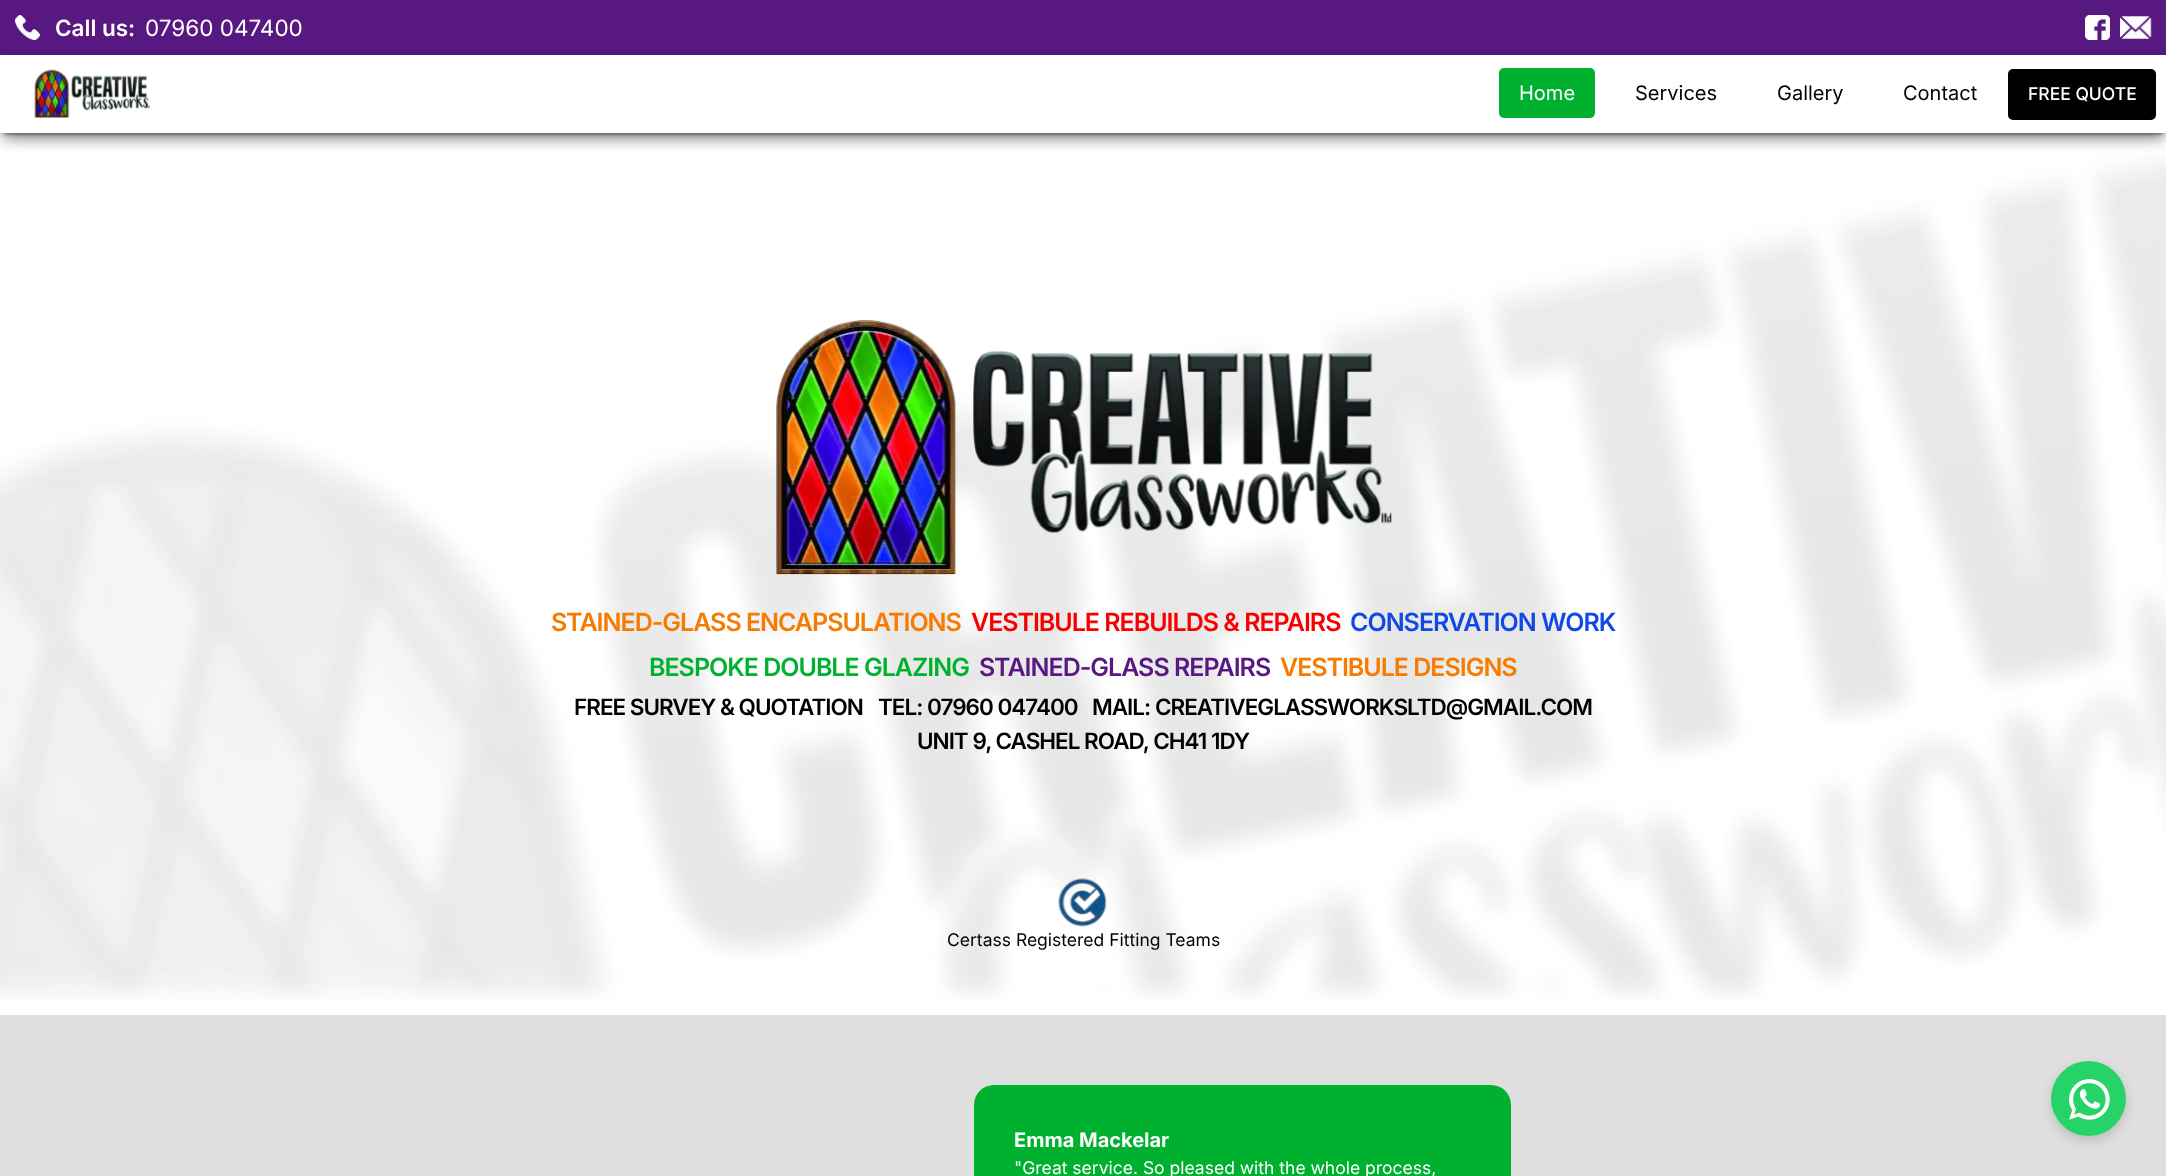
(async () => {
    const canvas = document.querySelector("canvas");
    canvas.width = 2166;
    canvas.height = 1176;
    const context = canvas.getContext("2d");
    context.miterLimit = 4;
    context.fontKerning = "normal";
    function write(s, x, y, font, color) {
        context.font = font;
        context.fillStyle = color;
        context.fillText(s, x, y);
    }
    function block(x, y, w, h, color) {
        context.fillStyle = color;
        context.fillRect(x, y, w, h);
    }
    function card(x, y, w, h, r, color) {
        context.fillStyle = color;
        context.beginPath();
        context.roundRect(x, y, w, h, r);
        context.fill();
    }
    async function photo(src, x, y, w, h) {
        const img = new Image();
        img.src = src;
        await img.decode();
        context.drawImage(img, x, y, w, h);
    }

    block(0, 0, 2166, 1176, "rgb(255, 255, 255)");
    block(0, 0, 2166, 55, "rgb(88, 24, 130)");
    await photo("media/1.png", 15, 15, 25, 25);
    write("Call us:", 55, 36, "600 22.5px Inter", "rgb(255, 255, 255)");
    write("07960 047400", 145, 36, "22.5px Inter", "rgb(255, 255, 255)");
    await photo("media/2.png", 2085, 15, 25, 25);
    await photo("media/3.png", 2120, 16, 32, 23);
    context.fillStyle = "rgb(81, 44, 75)";
    context.filter = "blur(2.5px)";
    context.beginPath();
    context.rect(4, 63, 2159, 70);
    context.fill();
    context.filter = "none";
    await photo("media/5.png", 0, 154, 2166, 847);
    context.fillStyle = "rgba(0, 0, 0, 0.5)";
    context.filter = "blur(7.5px)";
    context.beginPath();
    context.rect(3, 65, 2161, 73);
    context.fill();
    context.filter = "none";
    block(0, 55, 2166, 78, "rgb(255, 255, 255)");
    await photo("media/4.png", 34, 69, 117, 49);
    card(1499, 68, 96, 50, 5, "rgb(0, 177, 47)");
    write("Home", 1519, 100, "20px Inter", "rgb(255, 255, 255)");
    write("Services", 1635, 100, "20px Inter", "rgb(0, 0, 0)");
    write("Gallery", 1777, 100, "20px Inter", "rgb(0, 0, 0)");
    write("Contact", 1903, 100, "20px Inter", "rgb(0, 0, 0)");
    card(2008, 69, 148, 51, 5, "rgb(0, 0, 0)");
    write("FREE QUOTE", 2028, 100, "500 17.5px Inter", "rgb(255, 255, 255)");
    await photo("media/6.png", 776, 320, 616, 255);
    context.letterSpacing = "-1px";
    write("STAINED-GLASS ENCAPSULATIONS", 551, 631, "600 25px Inter", "rgb(246, 123, 0)");
    write("VESTIBULE REBUILDS & REPAIRS", 971, 631, "600 25px Inter", "rgb(248, 0, 0)");
    write("CONSERVATION WORK", 1350, 631, "600 25px Inter", "rgb(16, 73, 227)");
    write("BESPOKE DOUBLE GLAZING", 649, 676, "600 25px Inter", "rgb(0, 177, 47)");
    write("STAINED-GLASS REPAIRS", 979, 676, "600 25px Inter", "rgb(88, 24, 130)");
    write("VESTIBULE DESIGNS", 1280, 676, "600 25px Inter", "rgb(246, 123, 0)");
    write("FREE SURVEY & QUOTATION", 574, 715, "600 22.5px Inter", "rgb(0, 0, 0)");
    write("TEL: 07960 047400", 878, 715, "600 22.5px Inter", "rgb(0, 0, 0)");
    write("MAIL: CREATIVEGLASSWORKSLTD@GMAIL.COM", 1092, 715, "600 22.5px Inter", "rgb(0, 0, 0)");
    write("UNIT 9, CASHEL ROAD, CH41 1DY", 917, 749, "600 22.5px Inter", "rgb(0, 0, 0)");
    await photo("media/7.png", 1058, 878, 49, 49);
    context.letterSpacing = "0px";
    write("Certass Registered Fitting Teams", 947, 946, "17.5px Inter", "rgb(0, 0, 0)");
    block(0, 1015, 2166, 161, "rgb(223, 223, 223)");
    card(974, 1085, 537, 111, 20, "rgb(0, 177, 47)");
    write("Emma Mackelar", 1014, 1147, "bold 20px Inter", "rgb(255, 255, 255)");
    write("\"Great service. So pleased with the whole process,", 1014, 1174, "17.5px Inter", "rgb(255, 255, 255)");
    context.fillStyle = "rgba(0, 0, 0, 0.15)";
    context.filter = "blur(6px)";
    context.beginPath();
    context.roundRect(2051, 1066, 75, 75, 37.5);
    context.fill();
    context.filter = "none";
    context.fillStyle = "rgb(37, 211, 102)";
    context.beginPath();
    context.arc(2088.5, 1098.5, 37.5, 0, Math.PI * 2);
    context.fill();
    await photo("media/8.png", 2069, 1079, 41, 41);
})();
